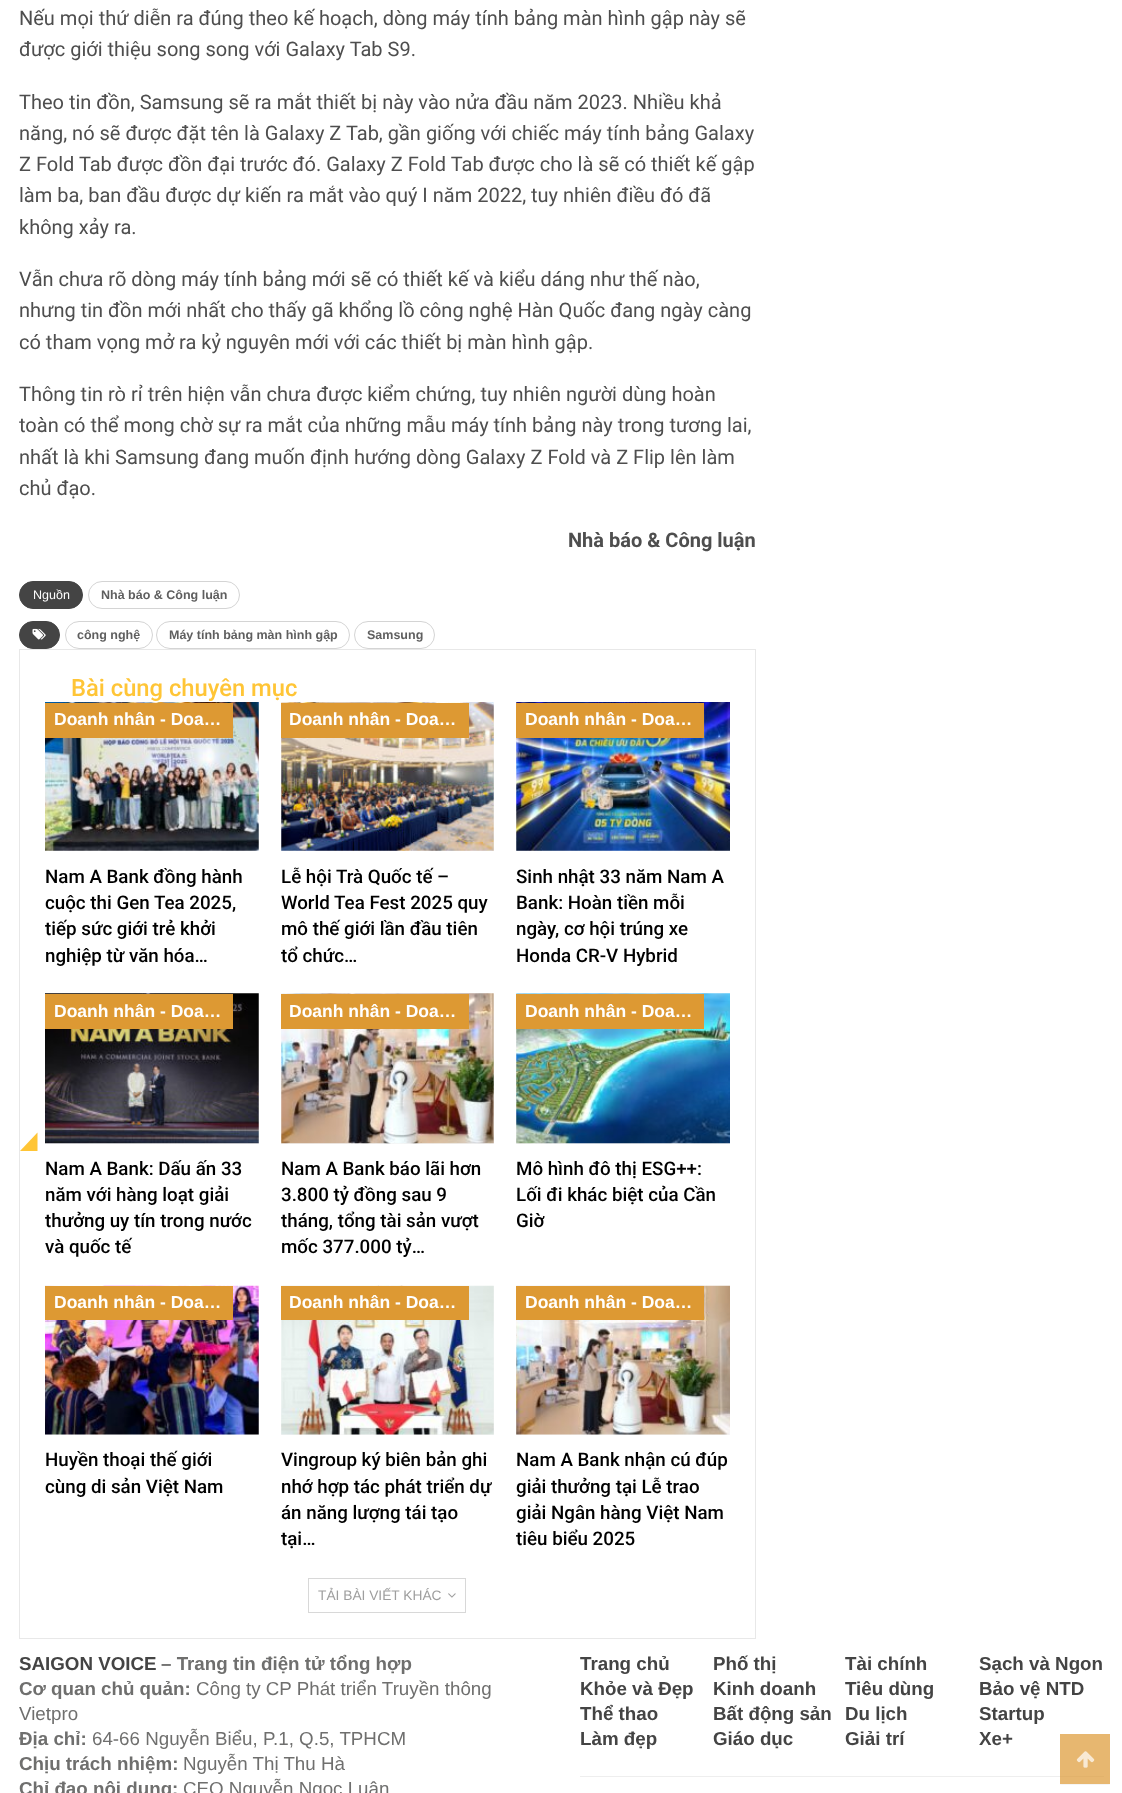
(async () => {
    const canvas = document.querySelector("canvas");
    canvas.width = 1122;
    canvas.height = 1793;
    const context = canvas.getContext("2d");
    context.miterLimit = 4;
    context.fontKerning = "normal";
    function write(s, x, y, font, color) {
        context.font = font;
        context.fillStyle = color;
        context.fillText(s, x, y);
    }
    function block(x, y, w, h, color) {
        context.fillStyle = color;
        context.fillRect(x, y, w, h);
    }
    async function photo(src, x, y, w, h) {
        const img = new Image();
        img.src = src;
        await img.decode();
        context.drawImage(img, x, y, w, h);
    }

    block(0, 0, 1122, 1793, "rgb(255, 255, 255)");
    write("Nếu mọi thứ diễn ra đúng theo kế hoạch, dòng máy tính bảng màn hình gập này sẽ", 19, 25, "20px Roboto", "rgb(78, 78, 78)");
    write("được giới thiệu song song với Galaxy Tab S9.", 19, 56, "20px Roboto", "rgb(78, 78, 78)");
    write("Theo tin đồn, Samsung sẽ ra mắt thiết bị này vào nửa đầu năm 2023. Nhiều khả", 19, 109, "20px Roboto", "rgb(78, 78, 78)");
    write("năng, nó sẽ được đặt tên là Galaxy Z Tab, gần giống với chiếc máy tính bảng Galaxy", 19, 140, "20px Roboto", "rgb(78, 78, 78)");
    write("Z Fold Tab được đồn đại trước đó. Galaxy Z Fold Tab được cho là sẽ có thiết kế gập", 19, 171, "20px Roboto", "rgb(78, 78, 78)");
    write("làm ba, ban đầu được dự kiến ra mắt vào quý I năm 2022, tuy nhiên điều đó đã", 19, 202, "20px Roboto", "rgb(78, 78, 78)");
    write("không xảy ra.", 19, 234, "20px Roboto", "rgb(78, 78, 78)");
    write("Vẫn chưa rõ dòng máy tính bảng mới sẽ có thiết kế và kiểu dáng như thế nào,", 19, 286, "20px Roboto", "rgb(78, 78, 78)");
    write("nhưng tin đồn mới nhất cho thấy gã khổng lồ công nghệ Hàn Quốc đang ngày càng", 19, 317, "20px Roboto", "rgb(78, 78, 78)");
    write("có tham vọng mở ra kỷ nguyên mới với các thiết bị màn hình gập.", 19, 349, "20px Roboto", "rgb(78, 78, 78)");
    write("Thông tin rò rỉ trên hiện vẫn chưa được kiểm chứng, tuy nhiên người dùng hoàn", 19, 401, "20px Roboto", "rgb(78, 78, 78)");
    write("toàn có thể mong chờ sự ra mắt của những mẫu máy tính bảng này trong tương lai,", 19, 432, "20px Roboto", "rgb(78, 78, 78)");
    write("nhất là khi Samsung đang muốn định hướng dòng Galaxy Z Fold và Z Flip lên làm", 19, 464, "20px Roboto", "rgb(78, 78, 78)");
    write("chủ đạo.", 19, 495, "20px Roboto", "rgb(78, 78, 78)");
    write("Nhà báo & Công luận", 568, 547, "bold 20px Roboto", "rgb(78, 78, 78)");
    context.fillStyle = "rgb(68, 68, 68)";
    context.beginPath();
    context.roundRect(19.5, 581.5, 63, 27, 13.5);
    context.fill();
    context.strokeStyle = "rgb(68, 68, 68)";
    context.stroke();
    write("Nguồn", 33, 599, "12.5px Liberation Sans", "rgb(255, 255, 255)");
    context.beginPath();
    context.roundRect(88.5, 581.5, 151, 27, 13.5);
    context.strokeStyle = "rgb(212, 212, 212)";
    context.stroke();
    write("Nhà báo & Công luận", 101, 599, "bold 12.5px Liberation Sans", "rgb(95, 95, 95)");
    context.fillStyle = "rgb(68, 68, 68)";
    context.beginPath();
    context.roundRect(19.5, 621.5, 40, 27, 13.5);
    context.fill();
    context.strokeStyle = "rgb(68, 68, 68)";
    context.stroke();
    await photo("media/1.png", 32, 628, 14, 12);
    context.beginPath();
    context.roundRect(65.5, 621.5, 87, 27, 13.5);
    context.strokeStyle = "rgb(212, 212, 212)";
    context.stroke();
    write("công nghệ", 77, 639, "bold 12.5px Liberation Sans", "rgb(95, 95, 95)");
    context.beginPath();
    context.roundRect(156.5, 621.5, 193, 27, 13.5);
    context.stroke();
    write("Máy tính bảng màn hình gập", 169, 639, "bold 12.5px Liberation Sans", "rgb(95, 95, 95)");
    context.beginPath();
    context.roundRect(354.5, 621.5, 80, 27, 13.5);
    context.stroke();
    write("Samsung", 367, 639, "bold 12.5px Liberation Sans", "rgb(95, 95, 95)");
    context.strokeStyle = "rgb(232, 232, 232)";
    context.strokeRect(19.5, 649.5, 736, 989);
    write("Bài cùng chuyên mục", 71, 696, "500 23.75px Roboto", "rgb(255, 197, 54)");
    context.beginPath();
    context.moveTo(37.5, 1132.5);
    context.lineTo(37.5, 1151);
    context.lineTo(20, 1151);
    context.closePath();
    context.fill();
    block(45, 703, 214, 148, "rgb(245, 245, 245)");
    await photo("media/2.png", 45, 702, 214, 149);
    block(45, 703, 188, 35, "rgb(221, 153, 51)");
    write("Doanh nhân - Doa…", 54, 725, "bold 17.5px Liberation Sans", "rgb(255, 255, 255)");
    write("Nam A Bank đồng hành", 45, 883, "500 18.75px Roboto", "rgb(0, 0, 0)");
    write("cuộc thi Gen Tea 2025,", 45, 909, "500 18.75px Roboto", "rgb(0, 0, 0)");
    write("tiếp sức giới trẻ khởi", 45, 935, "500 18.75px Roboto", "rgb(0, 0, 0)");
    write("nghiệp từ văn hóa…", 45, 962, "500 18.75px Roboto", "rgb(0, 0, 0)");
    block(281, 703, 213, 148, "rgb(245, 245, 245)");
    await photo("media/3.png", 281, 702, 213, 149);
    block(281, 703, 188, 35, "rgb(221, 153, 51)");
    write("Doanh nhân - Doa…", 289, 725, "bold 17.5px Liberation Sans", "rgb(255, 255, 255)");
    write("Lễ hội Trà Quốc tế –", 281, 883, "500 18.75px Roboto", "rgb(0, 0, 0)");
    write("World Tea Fest 2025 quy", 281, 909, "500 18.75px Roboto", "rgb(0, 0, 0)");
    write("mô thế giới lần đầu tiên", 281, 935, "500 18.75px Roboto", "rgb(0, 0, 0)");
    write("tổ chức…", 281, 962, "500 18.75px Roboto", "rgb(0, 0, 0)");
    block(516, 738, 214, 113, "rgb(245, 245, 245)");
    await photo("media/4.png", 516, 702, 214, 149);
    block(516, 703, 188, 35, "rgb(221, 153, 51)");
    write("Doanh nhân - Doa…", 525, 725, "bold 17.5px Liberation Sans", "rgb(255, 255, 255)");
    write("Sinh nhật 33 năm Nam A", 516, 883, "500 18.75px Roboto", "rgb(0, 0, 0)");
    write("Bank: Hoàn tiền mỗi", 516, 909, "500 18.75px Roboto", "rgb(0, 0, 0)");
    write("ngày, cơ hội trúng xe", 516, 935, "500 18.75px Roboto", "rgb(0, 0, 0)");
    write("Honda CR-V Hybrid", 516, 962, "500 18.75px Roboto", "rgb(0, 0, 0)");
    block(45, 994, 214, 150, "rgb(245, 245, 245)");
    await photo("media/5.png", 45, 993, 214, 151);
    block(45, 994, 188, 35, "rgb(221, 153, 51)");
    write("Doanh nhân - Doa…", 54, 1017, "bold 17.5px Liberation Sans", "rgb(255, 255, 255)");
    write("Nam A Bank: Dấu ấn 33", 45, 1175, "500 18.75px Roboto", "rgb(0, 0, 0)");
    write("năm với hàng loạt giải", 45, 1201, "500 18.75px Roboto", "rgb(0, 0, 0)");
    write("thưởng uy tín trong nước", 45, 1227, "500 18.75px Roboto", "rgb(0, 0, 0)");
    write("và quốc tế", 45, 1253, "500 18.75px Roboto", "rgb(0, 0, 0)");
    block(281, 994, 213, 150, "rgb(245, 245, 245)");
    await photo("media/6.png", 281, 993, 213, 151);
    block(281, 994, 188, 35, "rgb(221, 153, 51)");
    write("Doanh nhân - Doa…", 289, 1017, "bold 17.5px Liberation Sans", "rgb(255, 255, 255)");
    write("Nam A Bank báo lãi hơn", 281, 1175, "500 18.75px Roboto", "rgb(0, 0, 0)");
    write("3.800 tỷ đồng sau 9", 281, 1201, "500 18.75px Roboto", "rgb(0, 0, 0)");
    write("tháng, tổng tài sản vượt", 281, 1227, "500 18.75px Roboto", "rgb(0, 0, 0)");
    write("mốc 377.000 tỷ…", 281, 1253, "500 18.75px Roboto", "rgb(0, 0, 0)");
    block(516, 1029, 214, 115, "rgb(245, 245, 245)");
    await photo("media/7.png", 516, 993, 214, 151);
    block(516, 994, 188, 35, "rgb(221, 153, 51)");
    write("Doanh nhân - Doa…", 525, 1017, "bold 17.5px Liberation Sans", "rgb(255, 255, 255)");
    write("Mô hình đô thị ESG++:", 516, 1175, "500 18.75px Roboto", "rgb(0, 0, 0)");
    write("Lối đi khác biệt của Cần", 516, 1201, "500 18.75px Roboto", "rgb(0, 0, 0)");
    write("Giờ", 516, 1227, "500 18.75px Roboto", "rgb(0, 0, 0)");
    block(45, 1286, 214, 149, "rgb(245, 245, 245)");
    await photo("media/8.png", 45, 1285, 214, 150);
    block(45, 1286, 188, 34, "rgb(221, 153, 51)");
    write("Doanh nhân - Doa…", 54, 1308, "bold 17.5px Liberation Sans", "rgb(255, 255, 255)");
    write("Huyền thoại thế giới", 45, 1466, "500 18.75px Roboto", "rgb(0, 0, 0)");
    write("cùng di sản Việt Nam", 45, 1493, "500 18.75px Roboto", "rgb(0, 0, 0)");
    block(281, 1286, 213, 149, "rgb(245, 245, 245)");
    await photo("media/9.png", 281, 1285, 213, 150);
    block(281, 1286, 188, 34, "rgb(221, 153, 51)");
    write("Doanh nhân - Doa…", 289, 1308, "bold 17.5px Liberation Sans", "rgb(255, 255, 255)");
    write("Vingroup ký biên bản ghi", 281, 1466, "500 18.75px Roboto", "rgb(0, 0, 0)");
    write("nhớ hợp tác phát triển dự", 281, 1493, "500 18.75px Roboto", "rgb(0, 0, 0)");
    write("án năng lượng tái tạo", 281, 1519, "500 18.75px Roboto", "rgb(0, 0, 0)");
    write("tại…", 281, 1545, "500 18.75px Roboto", "rgb(0, 0, 0)");
    block(516, 1320, 214, 115, "rgb(245, 245, 245)");
    await photo("media/10.png", 516, 1285, 214, 150);
    block(516, 1286, 188, 34, "rgb(221, 153, 51)");
    write("Doanh nhân - Doa…", 525, 1308, "bold 17.5px Liberation Sans", "rgb(255, 255, 255)");
    write("Nam A Bank nhận cú đúp", 516, 1466, "500 18.75px Roboto", "rgb(0, 0, 0)");
    write("giải thưởng tại Lễ trao", 516, 1493, "500 18.75px Roboto", "rgb(0, 0, 0)");
    write("giải Ngân hàng Việt Nam", 516, 1519, "500 18.75px Roboto", "rgb(0, 0, 0)");
    write("tiêu biểu 2025", 516, 1545, "500 18.75px Roboto", "rgb(0, 0, 0)");
    context.strokeStyle = "rgb(216, 216, 216)";
    context.strokeRect(308.5, 1578.5, 157, 34);
    write("TẢI BÀI VIẾT KHÁC", 318, 1600, "13.75px Liberation Sans", "rgb(158, 158, 158)");
    await photo("media/11.png", 448, 1593, 8, 5);
    write("SAIGON VOICE", 19, 1670, "bold 18.75px Liberation Sans", "rgb(68, 68, 68)");
    write("– Trang tin điện tử tổng hợp", 161, 1670, "bold 18.75px Liberation Sans", "rgb(111, 111, 110)");
    write("Cơ quan chủ quản:", 19, 1695, "bold 18.75px Liberation Sans", "rgb(111, 111, 110)");
    write("Công ty CP Phát triển Truyền thông", 196, 1695, "18.75px Liberation Sans", "rgb(111, 111, 110)");
    write("Vietpro", 19, 1720, "18.75px Liberation Sans", "rgb(111, 111, 110)");
    write("Địa chỉ:", 19, 1745, "bold 18.75px Liberation Sans", "rgb(111, 111, 110)");
    write("64-66 Nguyễn Biểu, P.1, Q.5, TPHCM", 92, 1745, "18.75px Liberation Sans", "rgb(111, 111, 110)");
    write("Chịu trách nhiệm:", 19, 1770, "bold 18.75px Liberation Sans", "rgb(111, 111, 110)");
    write("Nguyễn Thị Thu Hà", 183, 1770, "18.75px Liberation Sans", "rgb(111, 111, 110)");
    write("Chỉ đạo nội dung:", 19, 1795, "bold 18.75px Liberation Sans", "rgb(111, 111, 110)");
    write("CEO Nguyễn Ngọc Luận", 183, 1795, "18.75px Liberation Sans", "rgb(111, 111, 110)");
    write("Trang chủ", 580, 1670, "bold 18.75px Liberation Sans", "rgb(68, 68, 68)");
    write("Phố thị", 713, 1670, "bold 18.75px Liberation Sans", "rgb(68, 68, 68)");
    write("Tài chính", 845, 1670, "bold 18.75px Liberation Sans", "rgb(68, 68, 68)");
    write("Sạch và Ngon", 979, 1670, "bold 18.75px Liberation Sans", "rgb(68, 68, 68)");
    write("Khỏe và Đẹp", 580, 1695, "bold 18.75px Liberation Sans", "rgb(68, 68, 68)");
    write("Kinh doanh", 713, 1695, "bold 18.75px Liberation Sans", "rgb(68, 68, 68)");
    write("Tiêu dùng", 845, 1695, "bold 18.75px Liberation Sans", "rgb(68, 68, 68)");
    write("Bảo vệ NTD", 979, 1695, "bold 18.75px Liberation Sans", "rgb(68, 68, 68)");
    write("Thể thao", 580, 1720, "bold 18.75px Liberation Sans", "rgb(68, 68, 68)");
    write("Bất động sản", 713, 1720, "bold 18.75px Liberation Sans", "rgb(68, 68, 68)");
    write("Du lịch", 845, 1720, "bold 18.75px Liberation Sans", "rgb(68, 68, 68)");
    write("Startup", 979, 1720, "bold 18.75px Liberation Sans", "rgb(68, 68, 68)");
    write("Làm đẹp", 580, 1745, "bold 18.75px Liberation Sans", "rgb(68, 68, 68)");
    write("Giáo dục", 713, 1745, "bold 18.75px Liberation Sans", "rgb(68, 68, 68)");
    write("Giải trí", 845, 1745, "bold 18.75px Liberation Sans", "rgb(68, 68, 68)");
    write("Xe+", 979, 1745, "bold 18.75px Liberation Sans", "rgb(68, 68, 68)");
    block(580, 1776, 524, 1, "rgb(238, 238, 238)");
    context.save();
    context.beginPath();
    context.rect(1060, 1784, 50, 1);
    context.clip();
    context.fillStyle = "rgba(0, 0, 0, 0.06)";
    context.filter = "blur(1px)";
    context.beginPath();
    context.rect(1060, 1735, 50, 50);
    context.fill();
    context.filter = "none";
    context.restore();
    block(1060, 1734, 50, 50, "rgba(221, 153, 51, 0.7)");
    await photo("media/12.png", 1076, 1751, 19, 17);
})();
